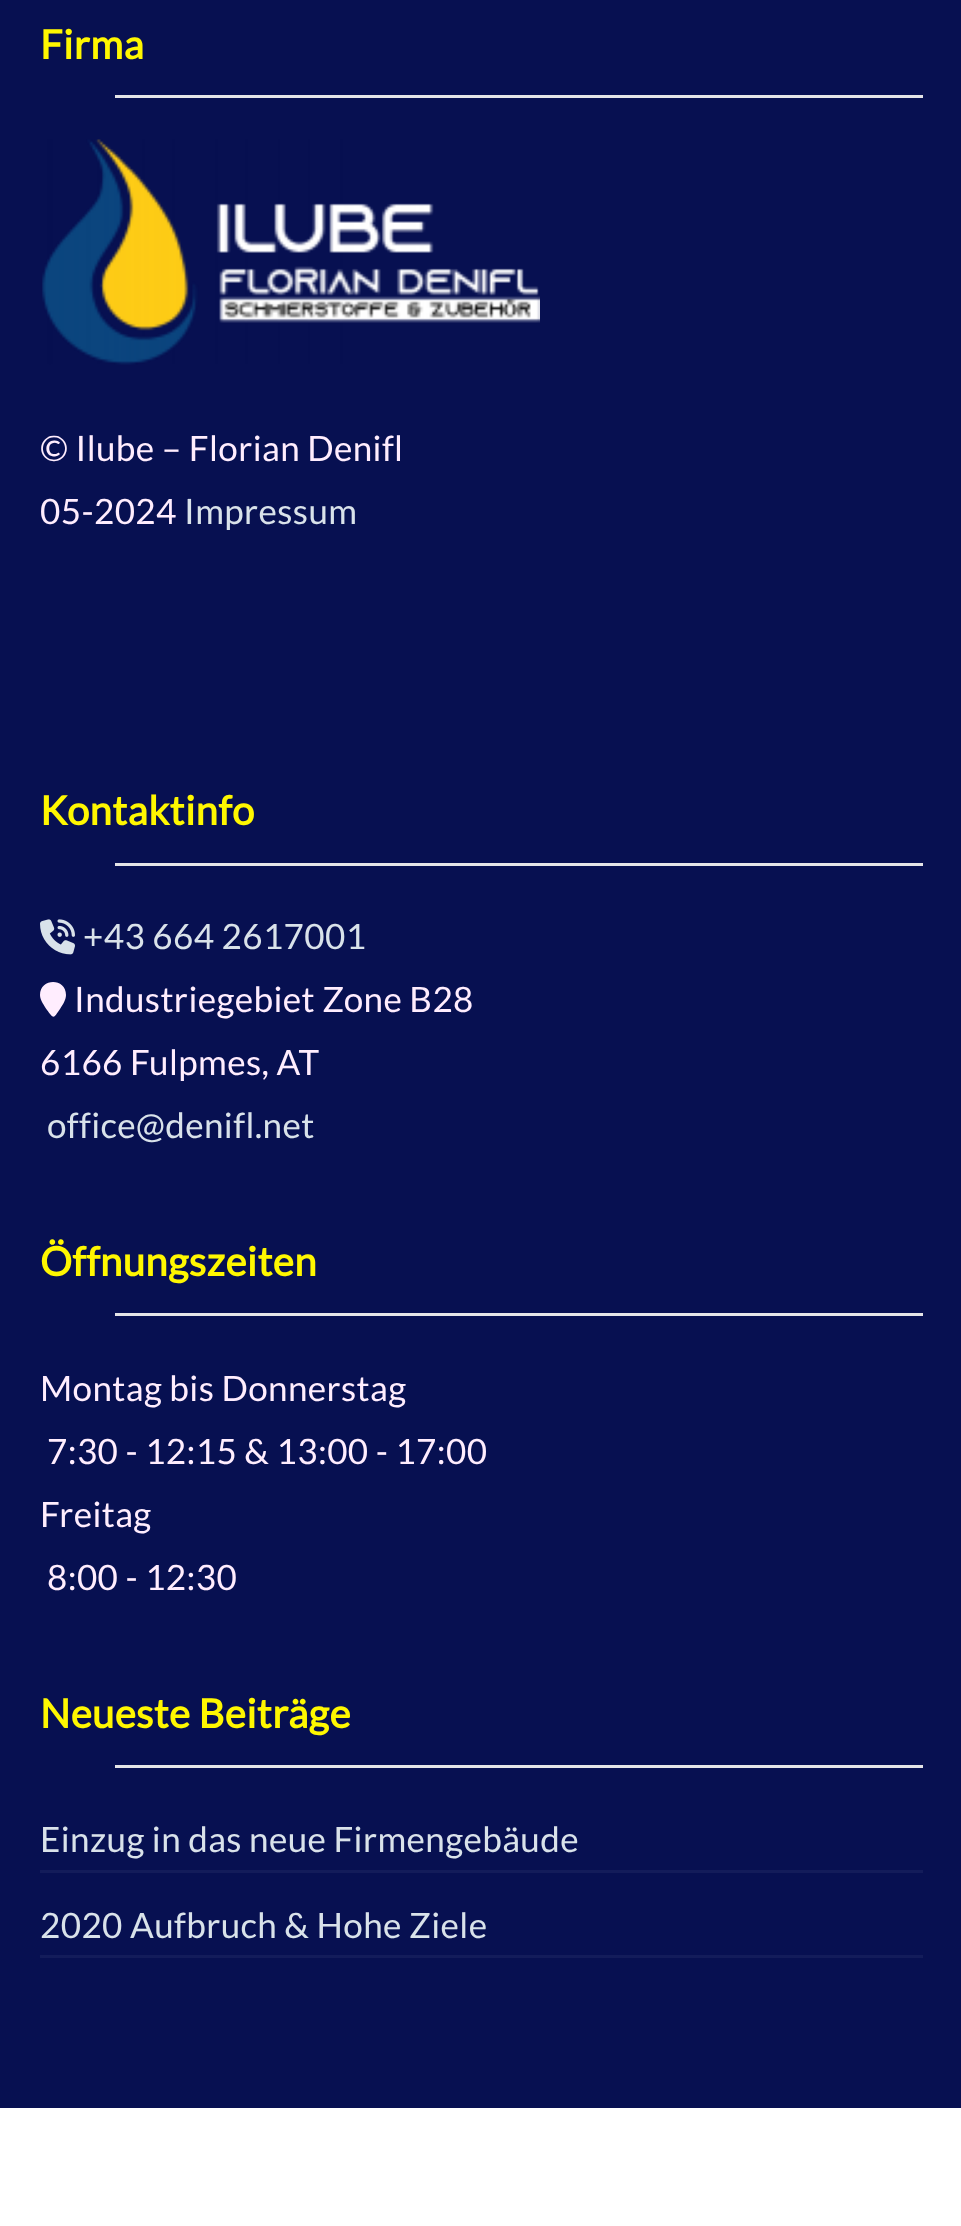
(async () => {
    const canvas = document.querySelector("canvas");
    canvas.width = 961;
    canvas.height = 2226;
    const context = canvas.getContext("2d");
    context.miterLimit = 4;
    context.fontKerning = "normal";
    function write(s, x, y, font, color) {
        context.font = font;
        context.fillStyle = color;
        context.fillText(s, x, y);
    }
    function block(x, y, w, h, color) {
        context.fillStyle = color;
        context.fillRect(x, y, w, h);
    }
    async function photo(src, x, y, w, h) {
        const img = new Image();
        img.src = src;
        await img.decode();
        context.drawImage(img, x, y, w, h);
    }

    block(0, 0, 961, 2226, "rgb(7, 16, 81)");
    block(115, 95, 808, 3, "rgb(228, 228, 231)");
    context.letterSpacing = "0.4px";
    write("Firma", 40, 59, "bold 40px Lato", "rgb(255, 247, 0)");
    await photo("media/1.png", 42, 139, 498, 226);
    write("© Ilube – Florian Denifl", 40, 461, "35px Lato", "rgb(255, 237, 254)");
    write("05-2024", 40, 524, "35px Lato", "rgb(255, 237, 254)");
    write("Impressum", 184, 524, "35px Lato", "rgb(217, 226, 234)");
    block(115, 863, 808, 3, "rgb(228, 228, 231)");
    write("Kontaktinfo", 40, 825, "bold 40px Lato", "rgb(255, 247, 0)");
    await photo("media/2.png", 40, 919, 35, 36);
    write("+43 664 2617001", 83, 949, "35px Lato", "rgb(217, 226, 234)");
    context.fillStyle = "rgb(255, 237, 254)";
    context.beginPath();
    context.moveTo(66, 995);
    context.bezierCurveTo(66, 1000, 62.5, 1005, 60, 1009);
    context.bezierCurveTo(53.5, 1018.5, 54, 1019.5, 47, 1010);
    context.bezierCurveTo(44.5, 1006, 40, 1000, 40, 995);
    context.bezierCurveTo(40, 978, 66, 977.5, 66, 995);
    context.closePath();
    context.fill();
    write("Industriegebiet Zone B28", 74, 1012, "35px Lato", "rgb(255, 237, 254)");
    write("6166 Fulpmes, AT", 40, 1075, "35px Lato", "rgb(255, 237, 254)");
    write("office@denifl.net", 47, 1138, "35px Lato", "rgb(217, 226, 234)");
    block(115, 1313, 808, 3, "rgb(228, 228, 231)");
    write("Öffnungszeiten", 40, 1276, "bold 40px Lato", "rgb(255, 247, 0)");
    write("Montag bis Donnerstag", 40, 1401, "35px Lato", "rgb(255, 237, 254)");
    write("7:30 - 12:15 & 13:00 - 17:00", 47, 1464, "35px Lato", "rgb(255, 237, 254)");
    write("Freitag", 40, 1527, "35px Lato", "rgb(255, 237, 254)");
    write("8:00 - 12:30", 47, 1590, "35px Lato", "rgb(255, 237, 254)");
    block(115, 1765, 808, 3, "rgb(228, 228, 231)");
    write("Neueste Beiträge", 40, 1728, "bold 40px Lato", "rgb(255, 247, 0)");
    block(40, 1870, 883, 3, "rgb(19, 28, 90)");
    write("Einzug in das neue Firmengebäude", 40, 1852, "35px Lato", "rgb(217, 226, 234)");
    block(40, 1955, 883, 3, "rgb(19, 28, 90)");
    write("2020 Aufbruch & Hohe Ziele", 40, 1938, "35px Lato", "rgb(217, 226, 234)");
    block(0, 2108, 961, 118, "rgb(255, 255, 255)");
})();
